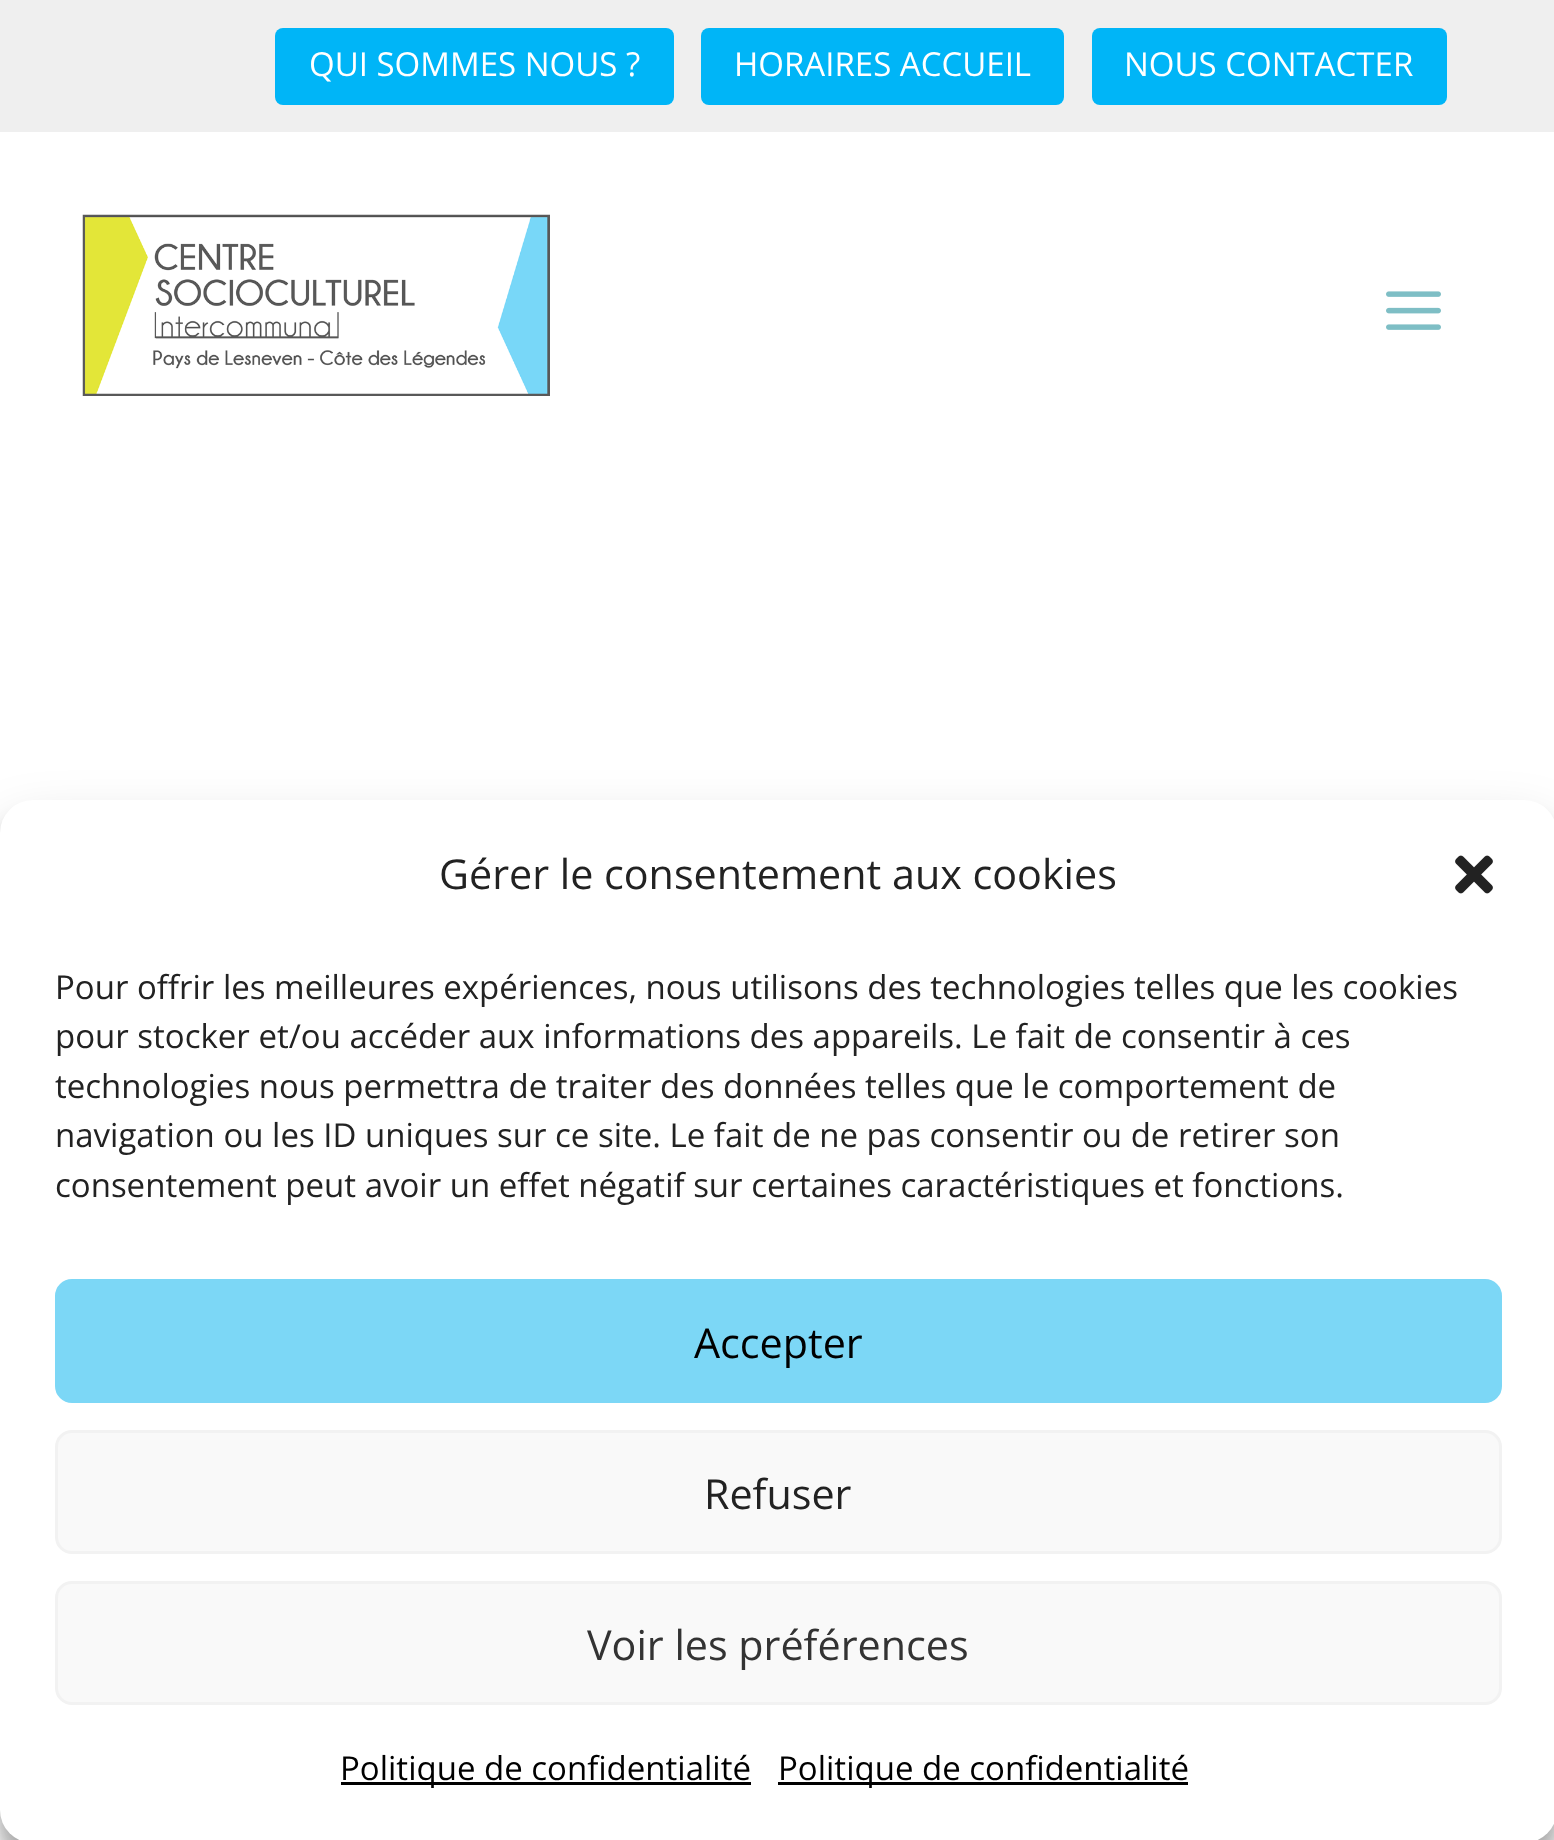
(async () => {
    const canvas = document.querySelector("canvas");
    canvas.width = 1554;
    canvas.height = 1840;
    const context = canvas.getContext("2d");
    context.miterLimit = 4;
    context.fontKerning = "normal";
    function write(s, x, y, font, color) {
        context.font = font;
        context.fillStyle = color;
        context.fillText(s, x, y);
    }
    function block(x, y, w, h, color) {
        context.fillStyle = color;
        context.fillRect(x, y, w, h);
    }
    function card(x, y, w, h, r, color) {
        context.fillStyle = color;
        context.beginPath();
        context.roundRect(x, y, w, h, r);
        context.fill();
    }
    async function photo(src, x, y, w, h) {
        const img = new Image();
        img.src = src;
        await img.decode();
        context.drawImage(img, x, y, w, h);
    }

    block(0, 0, 1554, 1840, "rgb(255, 255, 255)");
    block(0, 0, 1554, 132, "rgb(239, 239, 239)");
    card(275, 28, 399, 77, 8, "rgb(0, 181, 247)");
    write("QUI SOMMES NOUS ?", 309, 76, "33px Open Sans", "rgb(255, 255, 255)");
    card(701, 28, 363, 77, 8, "rgb(0, 181, 247)");
    write("HORAIRES ACCUEIL", 734, 76, "33px Open Sans", "rgb(255, 255, 255)");
    card(1092, 28, 355, 77, 8, "rgb(0, 181, 247)");
    write("NOUS CONTACTER", 1124, 76, "33px Open Sans", "rgb(255, 255, 255)");
    await photo("media/1.png", 82, 214, 468, 182);
    await photo("media/2.png", 1386, 291, 55, 39);
    context.fillStyle = "rgba(0, 0, 0, 0.23)";
    context.filter = "blur(8px)";
    context.beginPath();
    context.roundRect(0, 817, 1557, 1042, 33);
    context.fill();
    context.filter = "none";
    context.fillStyle = "rgba(0, 0, 0, 0.19)";
    context.filter = "blur(27.5px)";
    context.beginPath();
    context.roundRect(0, 828, 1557, 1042, 33);
    context.fill();
    context.filter = "none";
    card(0, 800, 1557, 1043, 33, "rgb(255, 255, 255)");
    write("Gérer le consentement aux cookies", 439, 889, "41.25px Open Sans", "rgb(34, 34, 34)");
    await photo("media/3.png", 1455, 855, 38, 39);
    write("Pour offrir les meilleures expériences, nous utilisons des technologies telles que les cookies", 55, 999, "33px Open Sans", "rgb(34, 34, 34)");
    write("pour stocker et/ou accéder aux informations des appareils. Le fait de consentir à ces", 55, 1048, "33px Open Sans", "rgb(34, 34, 34)");
    write("technologies nous permettra de traiter des données telles que le comportement de", 55, 1098, "33px Open Sans", "rgb(34, 34, 34)");
    write("navigation ou les ID uniques sur ce site. Le fait de ne pas consentir ou de retirer son", 55, 1147, "33px Open Sans", "rgb(34, 34, 34)");
    write("consentement peut avoir un effet négatif sur certaines caractéristiques et fonctions.", 55, 1197, "33px Open Sans", "rgb(34, 34, 34)");
    context.fillStyle = "rgb(124, 215, 246)";
    context.beginPath();
    context.roundRect(56.5, 1280.5, 1444, 121, 15.5);
    context.fill();
    context.strokeStyle = "rgb(124, 215, 246)";
    context.lineWidth = 3;
    context.stroke();
    write("Accepter", 694, 1358, "41.25px Open Sans", "rgb(0, 0, 0)");
    context.fillStyle = "rgb(249, 249, 249)";
    context.beginPath();
    context.roundRect(56.5, 1431.5, 1444, 121, 15.5);
    context.fill();
    context.strokeStyle = "rgb(242, 242, 242)";
    context.stroke();
    write("Refuser", 704, 1509, "41.25px Open Sans", "rgb(34, 34, 34)");
    context.fillStyle = "rgb(249, 249, 249)";
    context.beginPath();
    context.roundRect(56.5, 1582.5, 1444, 121, 15.5);
    context.fill();
    context.stroke();
    write("Voir les préférences", 587, 1660, "41.25px Open Sans", "rgb(51, 51, 51)");
    block(341, 1782, 410, 3, "rgb(0, 0, 0)");
    write("Politique de confidentialité", 340, 1780, "33px Open Sans", "rgb(0, 0, 0)");
    block(778, 1782, 410, 3, "rgb(0, 0, 0)");
    write("Politique de confidentialité", 778, 1780, "33px Open Sans", "rgb(0, 0, 0)");
})();
